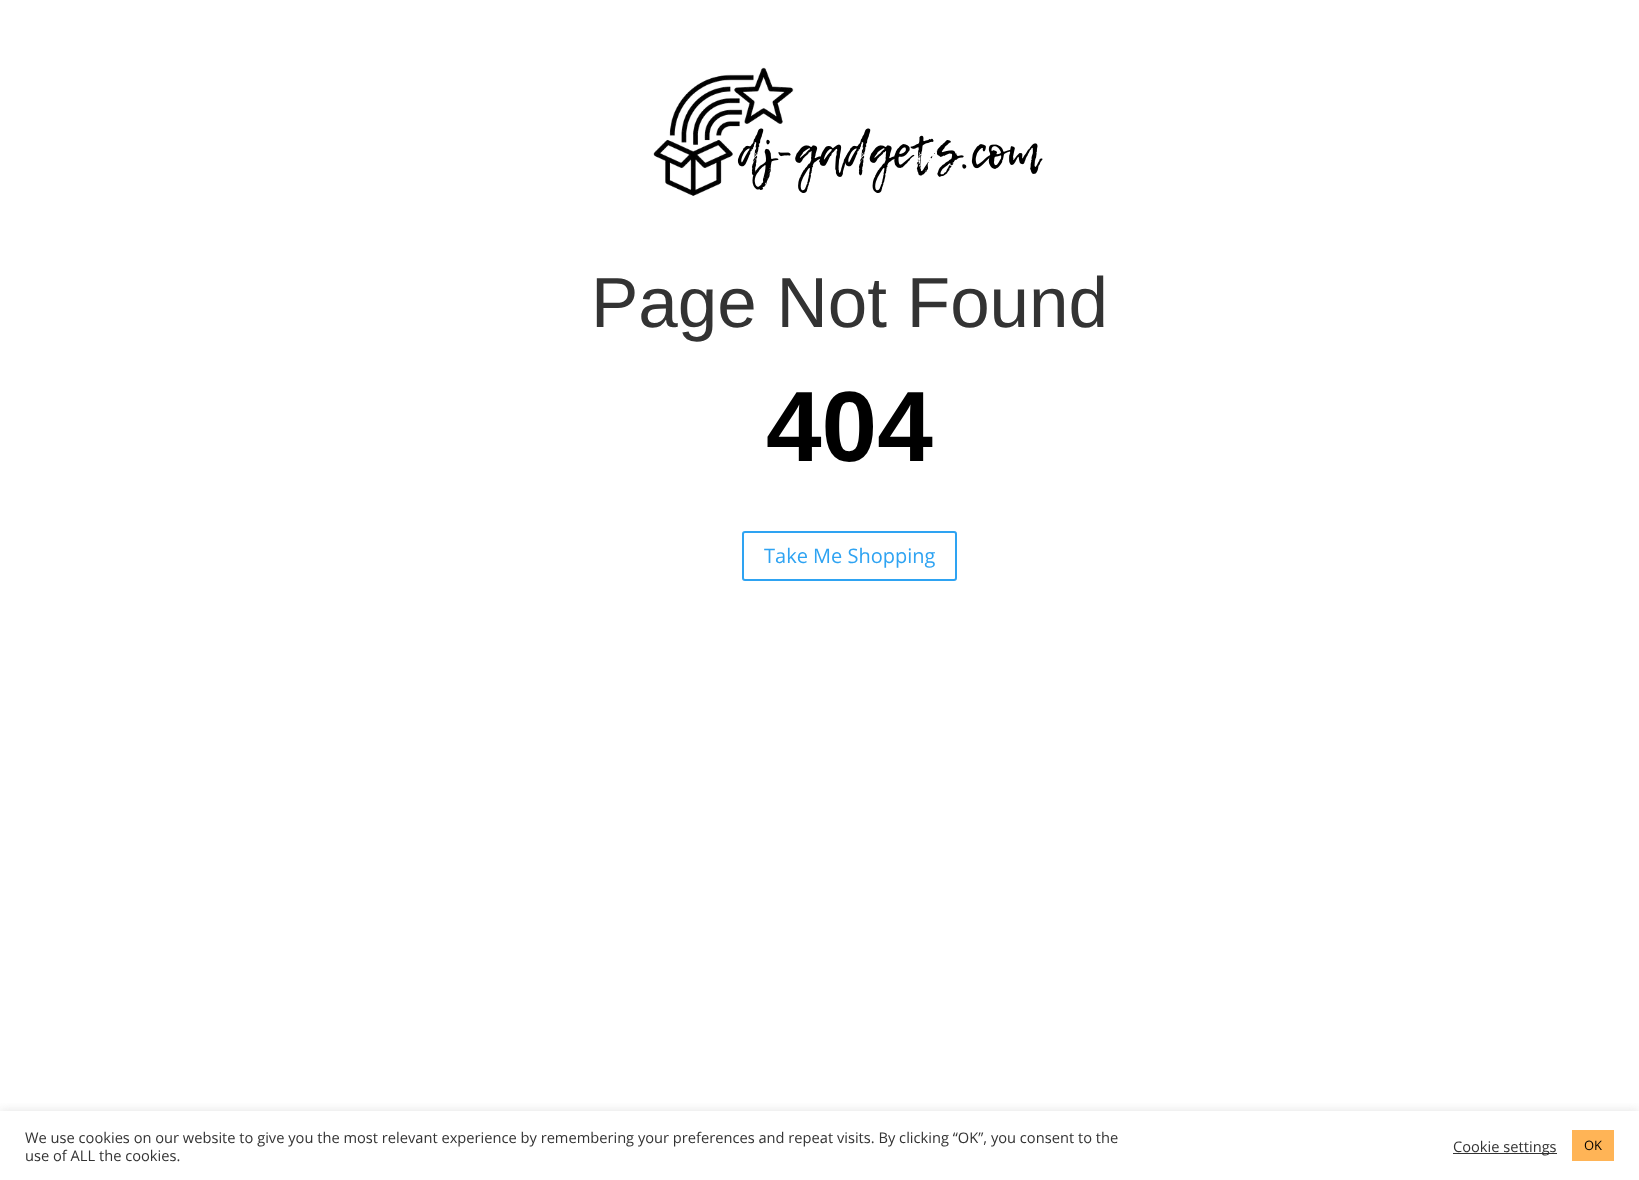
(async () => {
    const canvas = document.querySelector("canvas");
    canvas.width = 1639;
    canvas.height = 1180;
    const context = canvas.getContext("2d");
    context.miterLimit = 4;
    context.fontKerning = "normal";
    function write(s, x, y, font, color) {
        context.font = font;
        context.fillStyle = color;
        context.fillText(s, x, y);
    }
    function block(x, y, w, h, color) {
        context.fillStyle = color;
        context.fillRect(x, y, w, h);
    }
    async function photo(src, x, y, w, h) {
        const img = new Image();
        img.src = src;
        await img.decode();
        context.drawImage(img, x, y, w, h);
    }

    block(0, 0, 1639, 1180, "rgb(255, 255, 255)");
    await photo("media/1.png", 653, 67, 390, 129);
    write("Page Not Found", 591, 327, "71px Liberation Sans", "rgb(51, 51, 51)");
    write("404", 766, 461, "bold 100px Liberation Sans", "rgb(0, 0, 0)");
    context.beginPath();
    context.roundRect(743, 532, 213, 48, 2);
    context.strokeStyle = "rgb(46, 163, 242)";
    context.lineWidth = 2;
    context.stroke();
    write("Take Me Shopping", 764, 563, "20px Open Sans", "rgb(46, 163, 242)");
    context.save();
    context.beginPath();
    context.rect(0, 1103, 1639, 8);
    context.clip();
    context.fillStyle = "rgba(172, 171, 171, 0.3)";
    context.filter = "blur(5px)";
    context.beginPath();
    context.rect(0, 1110, 1639, 69);
    context.fill();
    context.filter = "none";
    context.restore();
    write("We use cookies on our website to give you the most relevant experience by remembering your preferences and repeat visits. By clicking “OK”, you consent to the", 25, 1143, "14.67px Open Sans", "rgb(51, 51, 51)");
    write("use of ALL the cookies.", 25, 1161, "14.67px Open Sans", "rgb(51, 51, 51)");
    block(1453, 1153, 104, 1, "rgb(51, 51, 51)");
    write("Cookie settings", 1453, 1152, "14.67px Open Sans", "rgb(51, 51, 51)");
    block(1572, 1130, 42, 31, "rgb(255, 180, 86)");
    write("OK", 1584, 1150, "13px Open Sans", "rgb(0, 0, 0)");
})();
